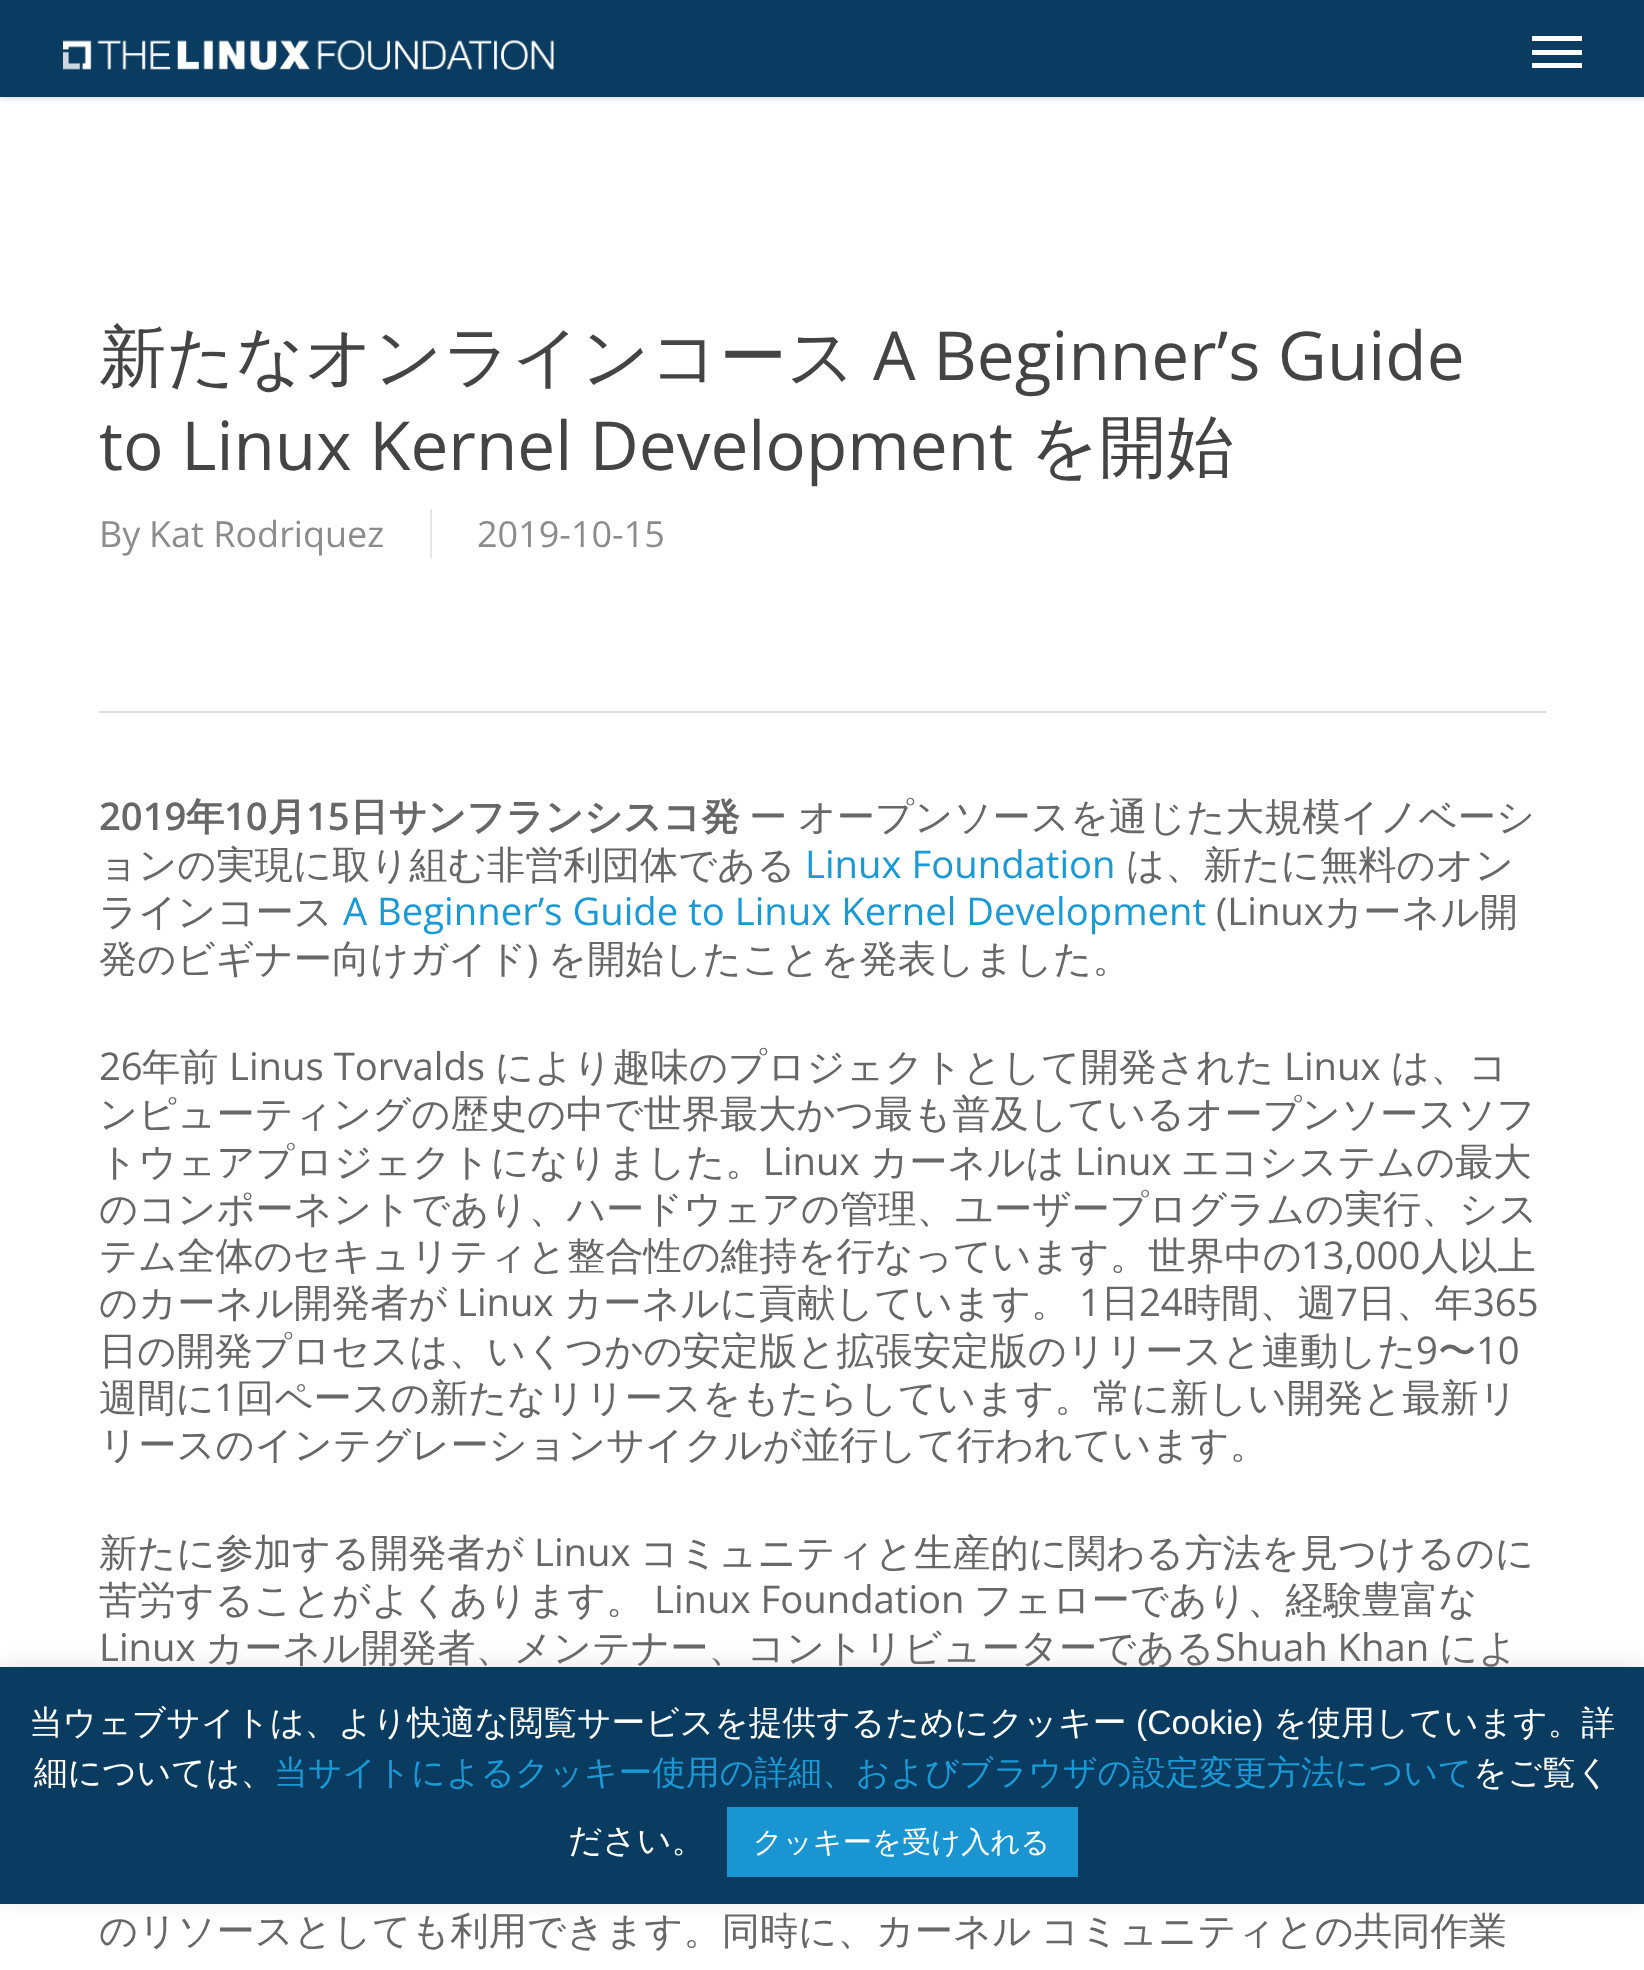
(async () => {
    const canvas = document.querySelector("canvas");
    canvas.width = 1644;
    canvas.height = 1970;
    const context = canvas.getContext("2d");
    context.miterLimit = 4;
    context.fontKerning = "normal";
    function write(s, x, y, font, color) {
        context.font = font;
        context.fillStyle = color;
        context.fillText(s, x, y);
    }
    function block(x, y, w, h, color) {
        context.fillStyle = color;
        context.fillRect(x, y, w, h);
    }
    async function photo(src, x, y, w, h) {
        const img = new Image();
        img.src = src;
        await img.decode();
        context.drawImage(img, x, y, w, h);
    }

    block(0, 0, 1644, 1970, "rgb(255, 255, 255)");
    context.fillStyle = "rgba(0, 0, 0, 0.22)";
    context.filter = "blur(3.5px)";
    context.beginPath();
    context.rect(0, 0, 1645, 97);
    context.fill();
    context.filter = "none";
    block(0, 0, 1644, 97, "rgb(10, 59, 97)");
    await photo("media/1.png", 63, 40, 491, 30);
    block(1532, 36, 50, 5, "rgb(255, 255, 255)");
    block(1532, 63, 50, 5, "rgb(255, 255, 255)");
    block(1532, 50, 50, 5, "rgb(255, 255, 255)");
    block(99, 711, 1447, 2, "rgb(221, 221, 221)");
    write("新たなオンラインコース", 99, 380, "500 67.5px WenQuanYi Zen Hei", "rgb(68, 68, 68)");
    write("A Beginner’s Guide", 873, 380, "67.5px Open Sans", "rgb(68, 68, 68)");
    write("to Linux Kernel Development", 99, 470, "67.5px Open Sans", "rgb(68, 68, 68)");
    write("を開始", 1030, 470, "500 67.5px WenQuanYi Zen Hei", "rgb(68, 68, 68)");
    write("By", 99, 547, "36px Open Sans", "rgb(140, 140, 140)");
    write("Kat Rodriquez", 149, 547, "36px Open Sans", "rgb(140, 140, 140)");
    write("2019-10-15", 477, 547, "36px Open Sans", "rgb(140, 140, 140)");
    block(430, 509, 2, 49, "rgb(230, 230, 230)");
    write("2019", 99, 830, "600 38.25px Open Sans", "rgb(103, 103, 103)");
    write("年", 186, 830, "bold 38.25px WenQuanYi Zen Hei", "rgb(103, 103, 103)");
    write("10", 224, 830, "600 38.25px Open Sans", "rgb(103, 103, 103)");
    write("月", 268, 830, "bold 38.25px WenQuanYi Zen Hei", "rgb(103, 103, 103)");
    write("15", 306, 830, "600 38.25px Open Sans", "rgb(103, 103, 103)");
    write("日サンフランシスコ発", 350, 830, "bold 38.25px WenQuanYi Zen Hei", "rgb(103, 103, 103)");
    context.wordSpacing = "-1px";
    write("ー オープンソースを通じた大規模イノベーシ", 749, 830, "500 38.25px WenQuanYi Zen Hei", "rgb(103, 103, 103)");
    context.wordSpacing = "0px";
    write("ョンの実現に取り組む非営利団体である", 99, 878, "500 38.25px WenQuanYi Zen Hei", "rgb(103, 103, 103)");
    write("Linux Foundation", 805, 878, "38.25px Open Sans", "rgb(25, 154, 214)");
    write("は、新たに無料のオン", 1126, 878, "500 38.25px WenQuanYi Zen Hei", "rgb(103, 103, 103)");
    write("ラインコース", 99, 925, "500 38.25px WenQuanYi Zen Hei", "rgb(103, 103, 103)");
    write("A Beginner’s Guide to Linux Kernel Development", 343, 925, "38.25px Open Sans", "rgb(25, 154, 214)");
    write("(Linux", 1216, 925, "38.25px Open Sans", "rgb(103, 103, 103)");
    write("カーネル開", 1324, 925, "500 38.25px WenQuanYi Zen Hei", "rgb(103, 103, 103)");
    write("発のビギナー向けガイド", 99, 972, "500 38.25px WenQuanYi Zen Hei", "rgb(103, 103, 103)");
    write(")", 527, 972, "38.25px Open Sans", "rgb(103, 103, 103)");
    write("を開始したことを発表しました。", 548, 972, "500 38.25px WenQuanYi Zen Hei", "rgb(103, 103, 103)");
    write("26", 99, 1080, "38.25px Open Sans", "rgb(103, 103, 103)");
    write("年前", 142, 1080, "500 38.25px WenQuanYi Zen Hei", "rgb(103, 103, 103)");
    write("Linus Torvalds", 229, 1080, "38.25px Open Sans", "rgb(103, 103, 103)");
    write("により趣味のプロジェクトとして開発された", 495, 1080, "500 38.25px WenQuanYi Zen Hei", "rgb(103, 103, 103)");
    write("Linux", 1284, 1080, "38.25px Open Sans", "rgb(103, 103, 103)");
    write("は、コ", 1391, 1080, "500 38.25px WenQuanYi Zen Hei", "rgb(103, 103, 103)");
    write("ンピューティングの歴史の中で世界最大かつ最も普及しているオープンソースソフ", 99, 1127, "500 38.25px WenQuanYi Zen Hei", "rgb(103, 103, 103)");
    write("トウェアプロジェクトになりました。", 99, 1175, "500 38.25px WenQuanYi Zen Hei", "rgb(103, 103, 103)");
    write("Linux", 763, 1175, "38.25px Open Sans", "rgb(103, 103, 103)");
    write("カーネルは", 870, 1175, "500 38.25px WenQuanYi Zen Hei", "rgb(103, 103, 103)");
    write("Linux", 1075, 1175, "38.25px Open Sans", "rgb(103, 103, 103)");
    write("エコシステムの最大", 1181, 1175, "500 38.25px WenQuanYi Zen Hei", "rgb(103, 103, 103)");
    write("のコンポーネントであり、ハードウェアの管理、ユーザープログラムの実行、シス", 99, 1222, "500 38.25px WenQuanYi Zen Hei", "rgb(103, 103, 103)");
    write("テム全体のセキュリティと整合性の維持を行なっています。世界中の", 99, 1269, "500 38.25px WenQuanYi Zen Hei", "rgb(103, 103, 103)");
    write("13,000", 1301, 1269, "38.25px Open Sans", "rgb(103, 103, 103)");
    write("人以上", 1421, 1269, "500 38.25px WenQuanYi Zen Hei", "rgb(103, 103, 103)");
    write("のカーネル開発者が", 99, 1316, "500 38.25px WenQuanYi Zen Hei", "rgb(103, 103, 103)");
    write("Linux", 457, 1316, "38.25px Open Sans", "rgb(103, 103, 103)");
    write("カーネルに貢献しています。", 564, 1316, "500 38.25px WenQuanYi Zen Hei", "rgb(103, 103, 103)");
    write("1", 1079, 1316, "38.25px Open Sans", "rgb(103, 103, 103)");
    write("日", 1101, 1316, "500 38.25px WenQuanYi Zen Hei", "rgb(103, 103, 103)");
    write("24", 1139, 1316, "38.25px Open Sans", "rgb(103, 103, 103)");
    write("時間、週", 1183, 1316, "500 38.25px WenQuanYi Zen Hei", "rgb(103, 103, 103)");
    write("7", 1336, 1316, "38.25px Open Sans", "rgb(103, 103, 103)");
    write("日、年", 1358, 1316, "500 38.25px WenQuanYi Zen Hei", "rgb(103, 103, 103)");
    write("365", 1473, 1316, "38.25px Open Sans", "rgb(103, 103, 103)");
    write("日の開発プロセスは、いくつかの安定版と拡張安定版のリリースと連動した", 99, 1364, "500 38.25px WenQuanYi Zen Hei", "rgb(103, 103, 103)");
    write("9", 1416, 1364, "38.25px Open Sans", "rgb(103, 103, 103)");
    write("〜", 1438, 1364, "500 38.25px WenQuanYi Zen Hei", "rgb(103, 103, 103)");
    write("10", 1476, 1364, "38.25px Open Sans", "rgb(103, 103, 103)");
    write("週間に", 99, 1411, "500 38.25px WenQuanYi Zen Hei", "rgb(103, 103, 103)");
    write("1", 214, 1411, "38.25px Open Sans", "rgb(103, 103, 103)");
    write("回ペースの新たなリリースをもたらしています。常に新しい開発と最新リ", 236, 1411, "500 38.25px WenQuanYi Zen Hei", "rgb(103, 103, 103)");
    write("リースのインテグレーションサイクルが並行して行われています。", 99, 1458, "500 38.25px WenQuanYi Zen Hei", "rgb(103, 103, 103)");
    write("新たに参加する開発者が", 99, 1566, "500 38.25px WenQuanYi Zen Hei", "rgb(103, 103, 103)");
    write("Linux", 534, 1566, "38.25px Open Sans", "rgb(103, 103, 103)");
    write("コミュニティと生産的に関わる方法を見つけるのに", 640, 1566, "500 38.25px WenQuanYi Zen Hei", "rgb(103, 103, 103)");
    write("苦労することがよくあります。", 99, 1613, "500 38.25px WenQuanYi Zen Hei", "rgb(103, 103, 103)");
    write("Linux Foundation", 654, 1613, "38.25px Open Sans", "rgb(103, 103, 103)");
    write("フェローであり、経験豊富な", 974, 1613, "500 38.25px WenQuanYi Zen Hei", "rgb(103, 103, 103)");
    write("Linux", 99, 1661, "38.25px Open Sans", "rgb(103, 103, 103)");
    write("カーネル開発者、メンテナー、コントリビューターである", 205, 1661, "500 38.25px WenQuanYi Zen Hei", "rgb(103, 103, 103)");
    write("Shuah Khan", 1215, 1661, "38.25px Open Sans", "rgb(103, 103, 103)");
    write("によ", 1439, 1661, "500 38.25px WenQuanYi Zen Hei", "rgb(103, 103, 103)");
    context.wordSpacing = "-2px";
    write("のリソースとしても利用できます。同時に、カーネル コミュニティとの共同作業", 99, 1944, "500 38.25px WenQuanYi Zen Hei", "rgb(103, 103, 103)");
    context.fillStyle = "rgba(172, 171, 171, 0.3)";
    context.filter = "blur(11px)";
    context.beginPath();
    context.rect(0, 1665, 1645, 236);
    context.fill();
    context.filter = "none";
    block(0, 1667, 1644, 237, "rgb(10, 59, 97)");
    context.wordSpacing = "0px";
    write("当ウェブサイトは、より快適な閲覧サービスを提供するためにクッキー", 29, 1734, "500 33.75px WenQuanYi Zen Hei", "rgb(255, 255, 255)");
    write("(Cookie)", 1136, 1734, "33.75px Liberation Sans", "rgb(255, 255, 255)");
    write("を使用しています。詳", 1273, 1734, "500 33.75px WenQuanYi Zen Hei", "rgb(255, 255, 255)");
    write("細については、", 34, 1784, "500 33.75px WenQuanYi Zen Hei", "rgb(255, 255, 255)");
    write("当サイトによるクッキー使用の詳細、およびブラウザの設定変更方法について", 274, 1784, "500 33.75px WenQuanYi Zen Hei", "rgb(25, 154, 214)");
    write("をご覧く", 1473, 1784, "500 33.75px WenQuanYi Zen Hei", "rgb(255, 255, 255)");
    write("ださい。", 568, 1852, "500 33.75px WenQuanYi Zen Hei", "rgb(255, 255, 255)");
    block(727, 1807, 351, 70, "rgb(25, 150, 210)");
    write("クッキーを受け入れる", 753, 1852, "500 29.25px WenQuanYi Zen Hei", "rgb(255, 255, 255)");
})();
